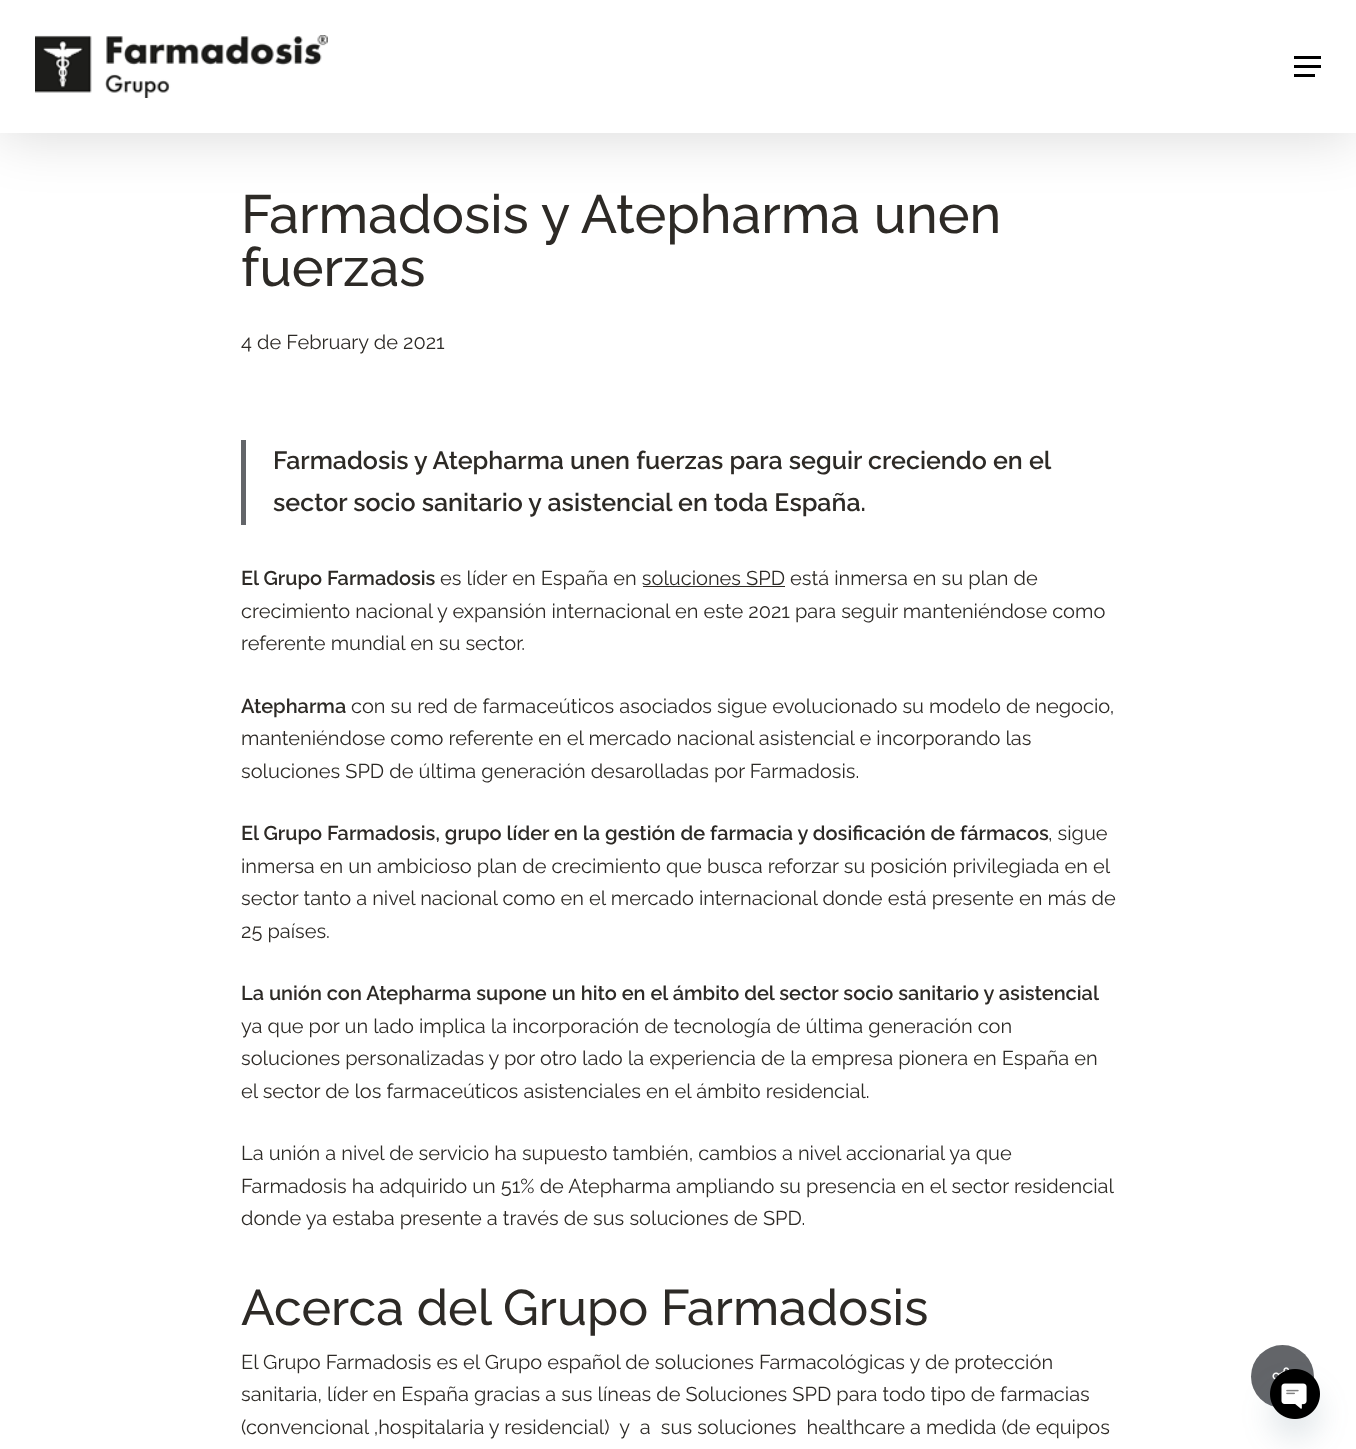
(async () => {
    const canvas = document.querySelector("canvas");
    canvas.width = 1356;
    canvas.height = 1449;
    const context = canvas.getContext("2d");
    context.miterLimit = 4;
    context.fontKerning = "normal";
    function write(s, x, y, font, color) {
        context.font = font;
        context.fillStyle = color;
        context.fillText(s, x, y);
    }
    function block(x, y, w, h, color) {
        context.fillStyle = color;
        context.fillRect(x, y, w, h);
    }
    async function photo(src, x, y, w, h) {
        const img = new Image();
        img.src = src;
        await img.decode();
        context.drawImage(img, x, y, w, h);
    }

    block(0, 0, 1356, 1449, "rgb(255, 255, 255)");
    context.fillStyle = "rgba(0, 0, 0, 0.15)";
    context.filter = "blur(28px)";
    context.beginPath();
    context.rect(0, 4, 1356, 132);
    context.fill();
    context.filter = "none";
    block(0, 0, 1356, 133, "rgb(255, 255, 255)");
    await photo("media/1.png", 35, 35, 293, 63);
    block(1294, 56, 27, 3, "rgb(0, 0, 0)");
    block(1294, 74, 21, 3, "rgb(0, 0, 0)");
    block(1294, 65, 27, 3, "rgb(0, 0, 0)");
    write("Farmadosis y Atepharma unen", 241, 233, "500 53.75px Raleway", "rgb(45, 42, 38)");
    write("fuerzas", 241, 286, "500 53.75px Raleway", "rgb(45, 42, 38)");
    write("4 de February de 2021", 241, 349, "20px Raleway", "rgb(45, 42, 38)");
    block(241, 440, 5, 85, "rgb(99, 101, 105)");
    write("Farmadosis y Atepharma unen fuerzas para seguir creciendo en el", 273, 469, "600 25px Raleway", "rgb(45, 42, 38)");
    write("sector socio sanitario y asistencial en toda España.", 273, 511, "600 25px Raleway", "rgb(45, 42, 38)");
    write("El Grupo Farmadosis", 241, 585, "600 20px Raleway", "rgb(45, 42, 38)");
    write("es líder en España en soluciones SPD está inmersa en su plan de", 440, 585, "20px Raleway", "rgb(45, 42, 38)");
    block(643, 586, 142, 1, "rgb(45, 42, 38)");
    write("crecimiento nacional y expansión internacional en este 2021 para seguir manteniéndose como", 241, 618, "20px Raleway", "rgb(45, 42, 38)");
    write("referente mundial en su sector.", 241, 650, "20px Raleway", "rgb(45, 42, 38)");
    write("Atepharma", 241, 713, "600 20px Raleway", "rgb(45, 42, 38)");
    write("con su red de farmaceúticos asociados sigue evolucionado su modelo de negocio,", 351, 713, "20px Raleway", "rgb(45, 42, 38)");
    write("manteniéndose como referente en el mercado nacional asistencial e incorporando las", 241, 745, "20px Raleway", "rgb(45, 42, 38)");
    write("soluciones SPD de última generación desarolladas por Farmadosis.", 241, 778, "20px Raleway", "rgb(45, 42, 38)");
    write("El Grupo Farmadosis, grupo líder en la gestión de farmacia y dosificación de fármacos", 241, 840, "600 20px Raleway", "rgb(45, 42, 38)");
    write(", sigue", 1048, 840, "20px Raleway", "rgb(45, 42, 38)");
    write("inmersa en un ambicioso plan de crecimiento que busca reforzar su posición privilegiada en el", 241, 873, "20px Raleway", "rgb(45, 42, 38)");
    write("sector tanto a nivel nacional como en el mercado internacional donde está presente en más de", 241, 905, "20px Raleway", "rgb(45, 42, 38)");
    write("25 países.", 241, 938, "20px Raleway", "rgb(45, 42, 38)");
    write("La unión con Atepharma supone un hito en el ámbito del sector socio sanitario y asistencial", 241, 1000, "600 20px Raleway", "rgb(45, 42, 38)");
    write("ya que por un lado implica la incorporación de tecnología de última generación con", 241, 1033, "20px Raleway", "rgb(45, 42, 38)");
    write("soluciones personalizadas y por otro lado la experiencia de la empresa pionera en España en", 241, 1065, "20px Raleway", "rgb(45, 42, 38)");
    write("el sector de los farmaceúticos asistenciales en el ámbito residencial.", 241, 1098, "20px Raleway", "rgb(45, 42, 38)");
    write("La unión a nivel de servicio ha supuesto también, cambios a nivel accionarial ya que", 241, 1160, "20px Raleway", "rgb(45, 42, 38)");
    write("Farmadosis ha adquirido un 51% de Atepharma ampliando su presencia en el sector residencial", 241, 1193, "20px Raleway", "rgb(45, 42, 38)");
    write("donde ya estaba presente a través de sus soluciones de SPD.", 241, 1225, "20px Raleway", "rgb(45, 42, 38)");
    write("Acerca del Grupo Farmadosis", 241, 1325, "500 50px Raleway", "rgb(45, 42, 38)");
    write("El Grupo Farmadosis es el Grupo español de soluciones Farmacológicas y de protección", 241, 1369, "20px Raleway", "rgb(45, 42, 38)");
    write("sanitaria, líder en España gracias a sus líneas de Soluciones SPD para todo tipo de farmacias", 241, 1401, "20px Raleway", "rgb(45, 42, 38)");
    write("(convencional ,hospitalaria y residencial)  y  a  sus soluciones  healthcare a medida (de equipos", 241, 1434, "20px Raleway", "rgb(45, 42, 38)");
    context.fillStyle = "rgb(99, 101, 105)";
    context.beginPath();
    context.arc(1282.5, 1376.5, 31.5, 0, Math.PI * 2);
    context.fill();
    await photo("media/2.png", 1272, 1367, 17, 13);
    context.fillStyle = "rgba(73, 104, 126, 0.16)";
    context.filter = "blur(15px)";
    context.beginPath();
    context.roundRect(1270, 1389, 50, 50, 25);
    context.fill();
    context.filter = "none";
    await photo("media/3.png", 1270, 1369, 50, 50);
})();
